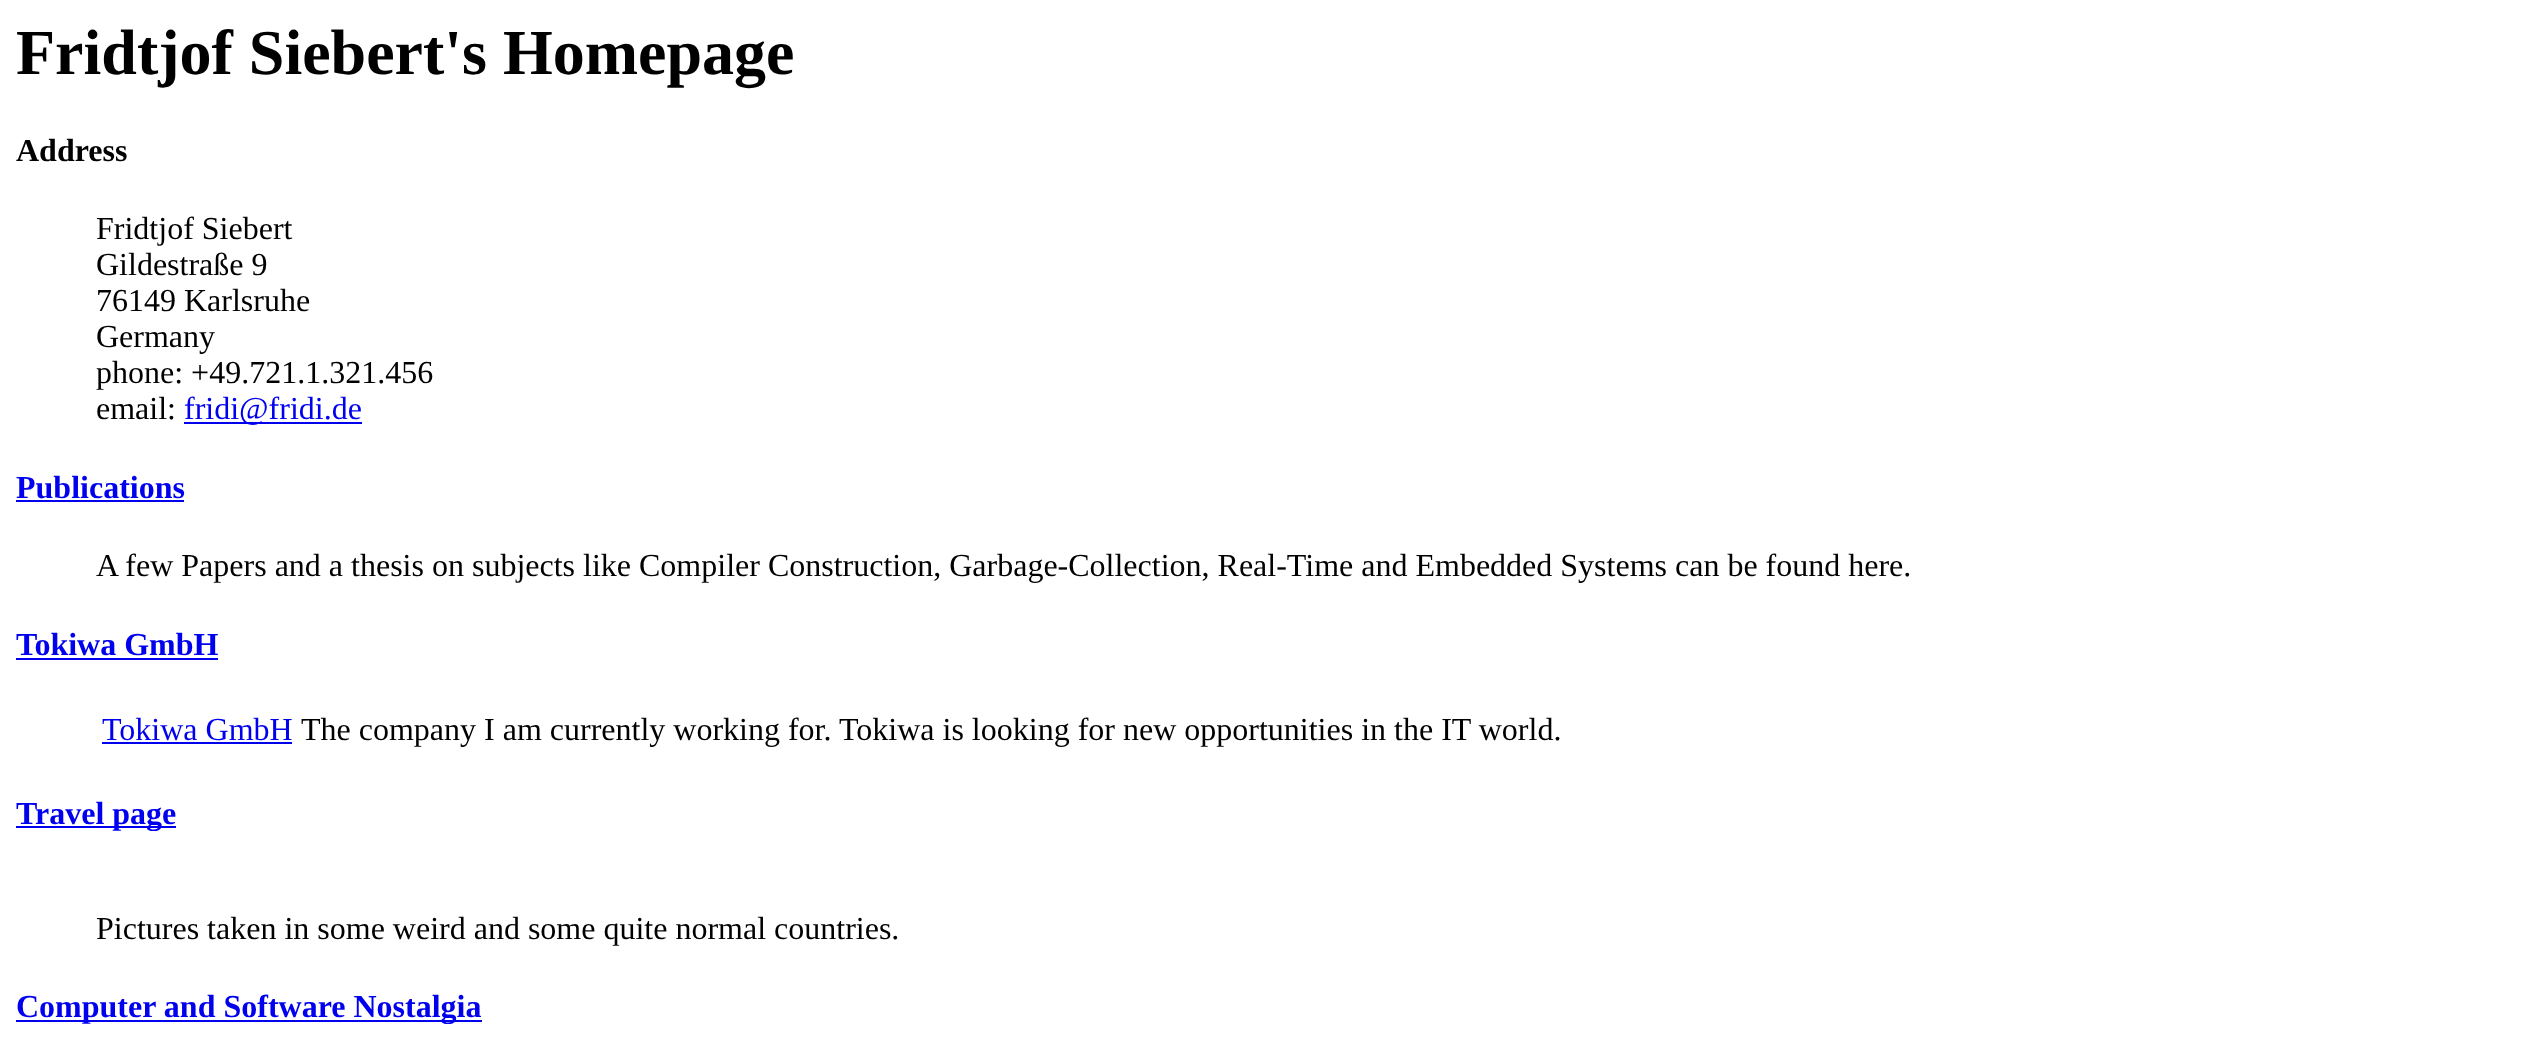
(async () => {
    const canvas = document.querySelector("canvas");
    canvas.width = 2531;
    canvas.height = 1045;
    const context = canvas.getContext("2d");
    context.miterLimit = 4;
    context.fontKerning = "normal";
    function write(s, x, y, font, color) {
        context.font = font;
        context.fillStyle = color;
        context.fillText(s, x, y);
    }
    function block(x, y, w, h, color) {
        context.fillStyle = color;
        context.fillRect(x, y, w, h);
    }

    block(0, 0, 2531, 1045, "rgb(255, 255, 255)");
    write("Fridtjof Siebert's Homepage", 16, 74, "bold 64px Liberation Serif", "rgb(0, 0, 0)");
    write("Address", 16, 161, "bold 32px Liberation Serif", "rgb(0, 0, 0)");
    write("Fridtjof Siebert", 96, 239, "32px Liberation Serif", "rgb(0, 0, 0)");
    write("Gildestraße 9", 96, 275, "32px Liberation Serif", "rgb(0, 0, 0)");
    write("76149 Karlsruhe", 96, 311, "32px Liberation Serif", "rgb(0, 0, 0)");
    write("Germany", 96, 347, "32px Liberation Serif", "rgb(0, 0, 0)");
    write("phone: +49.721.1.321.456", 96, 383, "32px Liberation Serif", "rgb(0, 0, 0)");
    write("email:", 96, 419, "32px Liberation Serif", "rgb(0, 0, 0)");
    block(184, 422, 178, 2, "rgb(0, 0, 238)");
    write("fridi@fridi.de", 184, 419, "32px Liberation Serif", "rgb(0, 0, 238)");
    write("Publications", 16, 498, "bold 32px Liberation Serif", "rgb(0, 0, 238)");
    block(16, 500, 168, 2, "rgb(0, 0, 238)");
    write("A few Papers and a thesis on subjects like Compiler Construction, Garbage-Collection, Real-Time and Embedded Systems can be found here.", 96, 576, "32px Liberation Serif", "rgb(0, 0, 0)");
    write("Tokiwa GmbH", 16, 655, "bold 32px Liberation Serif", "rgb(0, 0, 238)");
    block(16, 658, 202, 2, "rgb(0, 0, 238)");
    write("Tokiwa GmbH", 102, 740, "32px Liberation Serif", "rgb(0, 0, 238)");
    block(102, 742, 190, 2, "rgb(0, 0, 238)");
    write("The company I am currently working for.", 301, 740, "32px Liberation Serif", "rgb(0, 0, 0)");
    write("Tokiwa is looking for new opportunities in the IT world.", 839, 740, "32px Liberation Serif", "rgb(0, 0, 0)");
    block(16, 826, 160, 2, "rgb(0, 0, 238)");
    write("Travel page", 16, 824, "bold 32px Liberation Serif", "rgb(0, 0, 238)");
    write("Pictures taken in some weird and some quite normal countries.", 96, 939, "32px Liberation Serif", "rgb(0, 0, 0)");
    block(16, 1020, 466, 2, "rgb(0, 0, 238)");
    write("Computer and Software Nostalgia", 16, 1017, "bold 32px Liberation Serif", "rgb(0, 0, 238)");
})();
